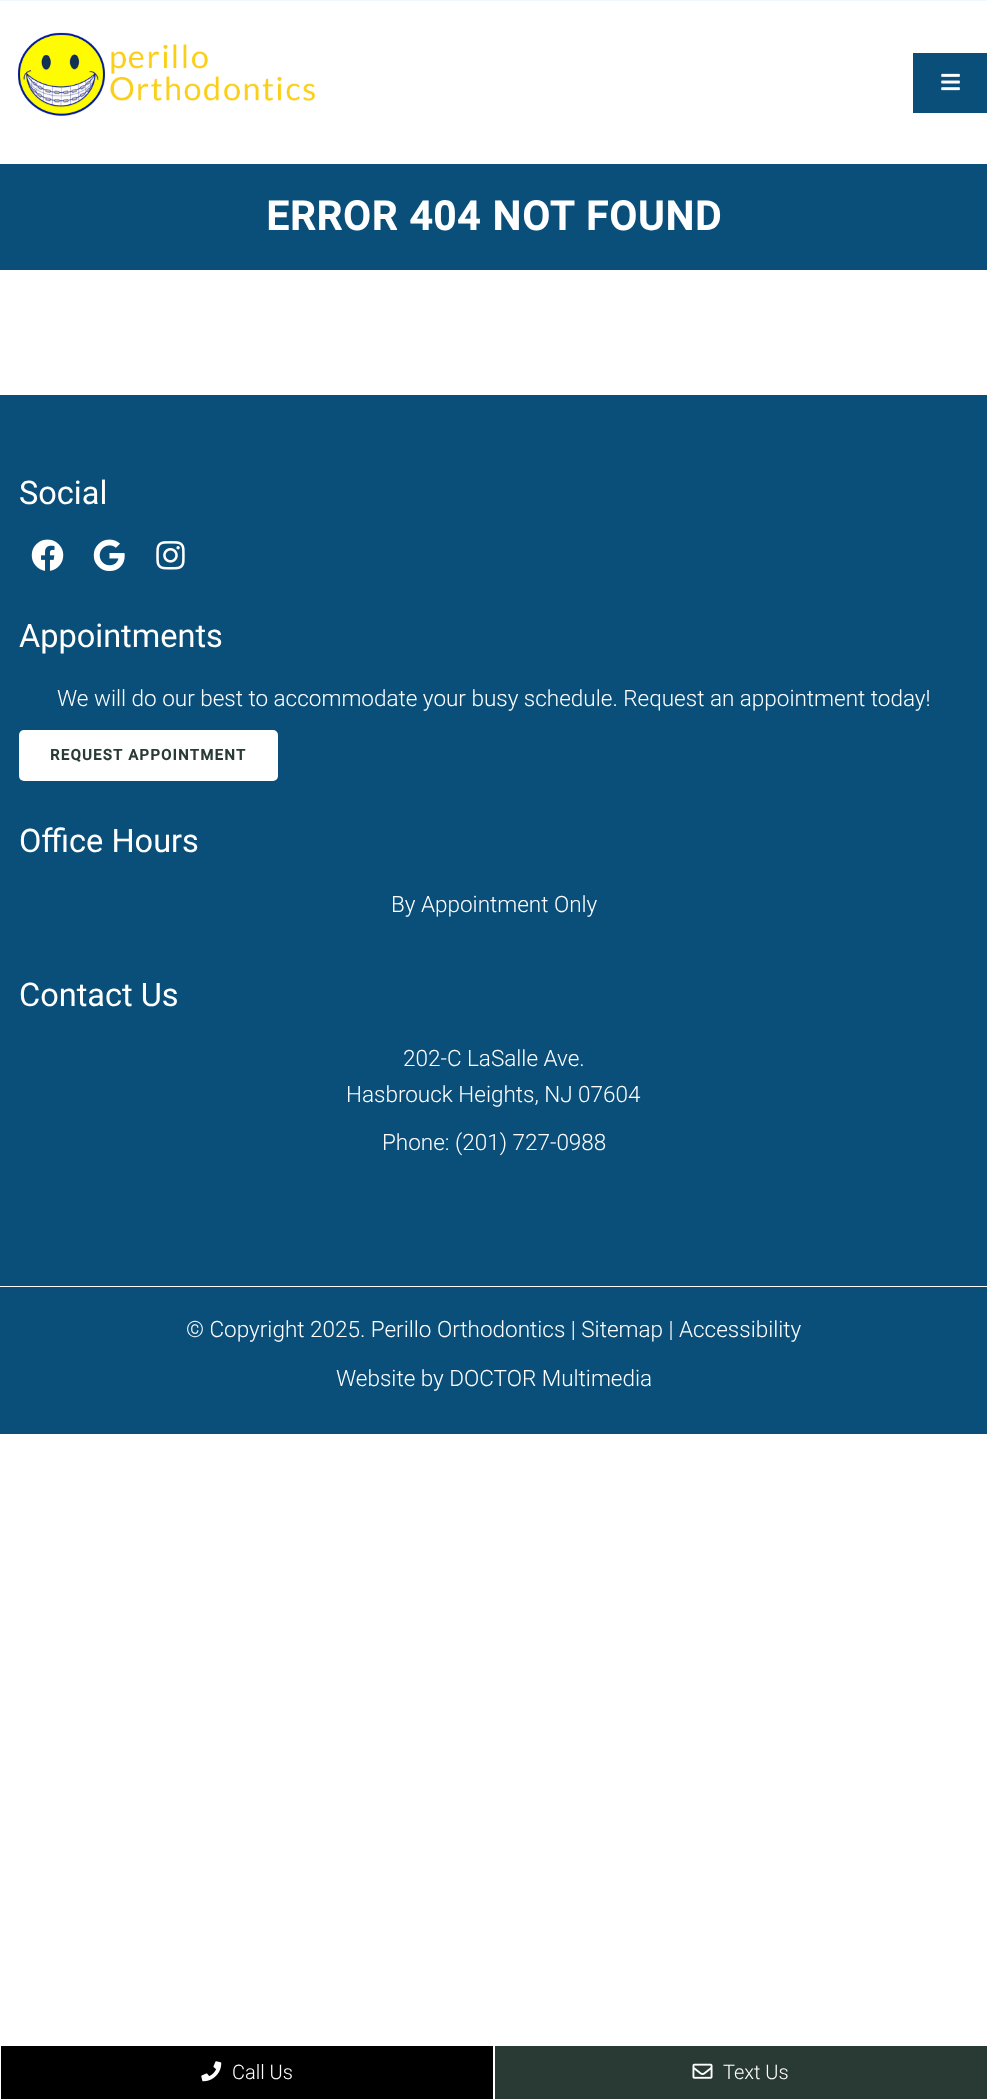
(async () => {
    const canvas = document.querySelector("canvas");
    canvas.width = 987;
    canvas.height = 2100;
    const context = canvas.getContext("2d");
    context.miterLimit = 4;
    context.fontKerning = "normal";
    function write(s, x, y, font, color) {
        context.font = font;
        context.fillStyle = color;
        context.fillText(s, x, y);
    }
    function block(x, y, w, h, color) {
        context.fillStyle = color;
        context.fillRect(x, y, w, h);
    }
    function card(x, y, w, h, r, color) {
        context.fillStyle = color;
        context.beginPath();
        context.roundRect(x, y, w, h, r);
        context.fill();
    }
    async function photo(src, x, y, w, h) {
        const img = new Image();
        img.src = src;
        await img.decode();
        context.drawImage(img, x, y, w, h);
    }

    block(0, 0, 987, 2100, "rgb(255, 255, 255)");
    block(0, 0, 987, 1, "rgb(240, 248, 255)");
    await photo("media/1.png", 18, 32, 297, 84);
    block(913, 53, 74, 60, "rgb(9, 79, 122)");
    await photo("media/2.png", 941, 73, 19, 18);
    block(0, 164, 987, 106, "rgb(9, 79, 122)");
    context.letterSpacing = "1.25px";
    write("ERROR 404 NOT FOUND", 266, 230, "bold 40px Roboto", "rgb(255, 255, 255)");
    block(0, 395, 987, 1039, "rgb(9, 79, 122)");
    context.letterSpacing = "0px";
    write("Social", 19, 504, "32.5px Roboto", "rgb(255, 255, 255)");
    await photo("media/3.png", 31, 539, 33, 32);
    await photo("media/4.png", 93, 539, 32, 33);
    await photo("media/5.png", 156, 541, 29, 29);
    write("Appointments", 19, 647, "32.5px Roboto", "rgb(255, 255, 255)");
    write("We will do our best to accommodate your busy schedule. Request an appointment today!", 57, 706, "300 22.5px Roboto", "rgb(255, 255, 255)");
    card(19, 730, 259, 51, 5, "rgb(255, 255, 255)");
    context.letterSpacing = "1.25px";
    write("REQUEST APPOINTMENT", 50, 760, "bold 15px Roboto", "rgb(42, 59, 53)");
    context.letterSpacing = "0px";
    write("Office Hours", 19, 852, "32.5px Roboto", "rgb(255, 255, 255)");
    write("By Appointment Only", 391, 912, "300 22.5px Roboto", "rgb(255, 255, 255)");
    write("Contact Us", 19, 1006, "32.5px Roboto", "rgb(255, 255, 255)");
    write("202-C LaSalle Ave.", 403, 1066, "300 22.5px Roboto", "rgb(255, 255, 255)");
    write("Hasbrouck Heights, NJ 07604", 346, 1102, "300 22.5px Roboto", "rgb(255, 255, 255)");
    write("Phone: (201) 727-0988", 382, 1150, "300 22.5px Roboto", "rgb(255, 255, 255)");
    block(0, 1286, 987, 1, "rgb(255, 255, 255)");
    write("© Copyright 2025. Perillo Orthodontics | Sitemap | Accessibility", 186, 1337, "300 22.5px Roboto", "rgb(255, 255, 255)");
    write("Website by DOCTOR Multimedia", 336, 1386, "300 22.5px Roboto", "rgb(255, 255, 255)");
    block(1, 2046, 492, 53, "rgb(0, 0, 0)");
    await photo("media/6.png", 201, 2061, 21, 21);
    write("Call Us", 232, 2079, "300 20px Roboto", "rgb(255, 255, 255)");
    block(495, 2046, 492, 53, "rgb(41, 58, 53)");
    await photo("media/7.png", 692, 2063, 21, 16);
    write("Text Us", 723, 2079, "300 20px Roboto", "rgb(255, 255, 255)");
})();
